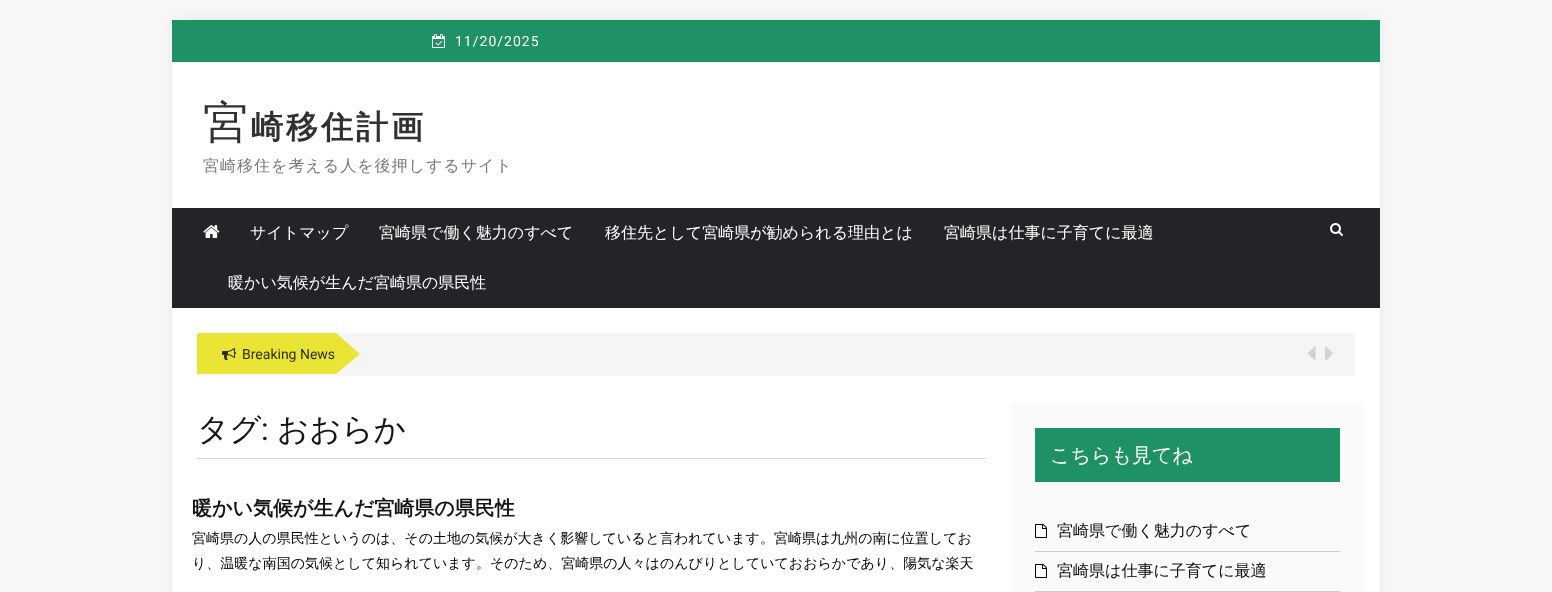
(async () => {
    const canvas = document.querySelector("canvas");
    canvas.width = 1552;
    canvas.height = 592;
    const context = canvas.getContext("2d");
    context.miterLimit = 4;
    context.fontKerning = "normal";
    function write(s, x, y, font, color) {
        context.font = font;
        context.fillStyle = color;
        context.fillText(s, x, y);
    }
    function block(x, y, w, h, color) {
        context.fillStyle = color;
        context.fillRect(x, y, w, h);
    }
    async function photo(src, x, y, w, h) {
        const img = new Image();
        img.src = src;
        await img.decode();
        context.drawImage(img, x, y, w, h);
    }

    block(0, 0, 1552, 592, "rgb(248, 248, 248)");
    context.fillStyle = "rgba(0, 0, 0, 0.07)";
    context.filter = "blur(10px)";
    context.beginPath();
    context.rect(174, 20, 1204, 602);
    context.fill();
    context.filter = "none";
    block(172, 63, 1208, 529, "rgb(255, 255, 255)");
    block(172, 20, 1208, 42, "rgb(30, 146, 101)");
    block(172, 62, 1208, 1, "rgb(241, 241, 241)");
    await photo("media/1.png", 432, 34, 13, 14);
    context.letterSpacing = "1px";
    write("11/20/2025", 455, 46, "14px Roboto", "rgb(255, 255, 255)");
    context.letterSpacing = "3px";
    write("宮", 203, 138, "100 45px Noto Sans", "rgb(49, 49, 49)");
    write("崎移住計画", 251, 138, "bold 32px WenQuanYi Zen Hei", "rgb(49, 49, 49)");
    context.letterSpacing = "1px";
    write("宮崎移住を考える人を後押しするサイト", 203, 171, "500 16px WenQuanYi Zen Hei", "rgb(121, 121, 121)");
    block(172, 208, 1208, 100, "rgb(36, 35, 40)");
    await photo("media/2.png", 203, 225, 17, 13);
    context.letterSpacing = "0px";
    write("サイトマップ", 250, 238, "500 16px WenQuanYi Zen Hei", "rgb(255, 255, 255)");
    write("宮崎県で働く魅力のすべて", 379, 238, "500 16px WenQuanYi Zen Hei", "rgb(255, 255, 255)");
    write("移住先として宮崎県が勧められる理由とは", 605, 238, "500 16px WenQuanYi Zen Hei", "rgb(255, 255, 255)");
    write("宮崎県は仕事に子育てに最適", 944, 238, "500 16px WenQuanYi Zen Hei", "rgb(255, 255, 255)");
    write("暖かい気候が生んだ宮崎県の県民性", 228, 288, "500 16px WenQuanYi Zen Hei", "rgb(255, 255, 255)");
    await photo("media/3.png", 1330, 223, 13, 13);
    block(197, 333, 1158, 43, "rgb(245, 245, 245)");
    context.fillStyle = "rgb(234, 228, 52)";
    context.beginPath();
    context.moveTo(197, 333);
    context.lineTo(197, 374);
    context.lineTo(336, 374);
    context.lineTo(360, 354);
    context.lineTo(336, 333);
    context.closePath();
    context.fill();
    await photo("media/4.png", 222, 348, 14, 12);
    write("Breaking News", 242, 359, "14px Roboto", "rgb(47, 46, 10)");
    await photo("media/5.png", 1308, 346, 8, 15);
    await photo("media/6.png", 1325, 346, 8, 15);
    block(197, 458, 789, 1, "rgb(217, 217, 217)");
    write("タグ", 197, 440, "500 31.5px WenQuanYi Zen Hei", "rgb(21, 21, 21)");
    write(":", 261, 440, "31.5px Roboto", "rgb(21, 21, 21)");
    write("おおらか", 277, 440, "500 31.5px WenQuanYi Zen Hei", "rgb(21, 21, 21)");
    write("暖かい気候が生んだ宮崎県の県民性", 192, 515, "bold 20px WenQuanYi Zen Hei", "rgb(21, 21, 21)");
    write("宮崎県の人の県民性というのは、その土地の気候が大きく影響していると言われています。宮崎県は九州の南に位置してお", 192, 543, "500 14px WenQuanYi Zen Hei", "rgb(0, 0, 0)");
    write("り、温暖な南国の気候として知られています。そのため、宮崎県の人々はのんびりとしていておおらかであり、陽気な楽天", 192, 568, "500 14px WenQuanYi Zen Hei", "rgb(0, 0, 0)");
    block(1010, 403, 355, 189, "rgb(251, 250, 250)");
    block(1035, 428, 305, 54, "rgb(30, 146, 101)");
    write("こちらも見てね", 1050, 462, "500 20px WenQuanYi Zen Hei", "rgb(255, 255, 255)");
    block(1035, 551, 305, 1, "rgb(204, 204, 204)");
    await photo("media/7.png", 1035, 524, 12, 14);
    write("宮崎県で働く魅力のすべて", 1057, 536, "500 16px WenQuanYi Zen Hei", "rgb(12, 12, 12)");
    block(1035, 591, 305, 1, "rgb(204, 204, 204)");
    await photo("media/7.png", 1035, 564, 12, 14);
    write("宮崎県は仕事に子育てに最適", 1057, 576, "500 16px WenQuanYi Zen Hei", "rgb(12, 12, 12)");
})();
